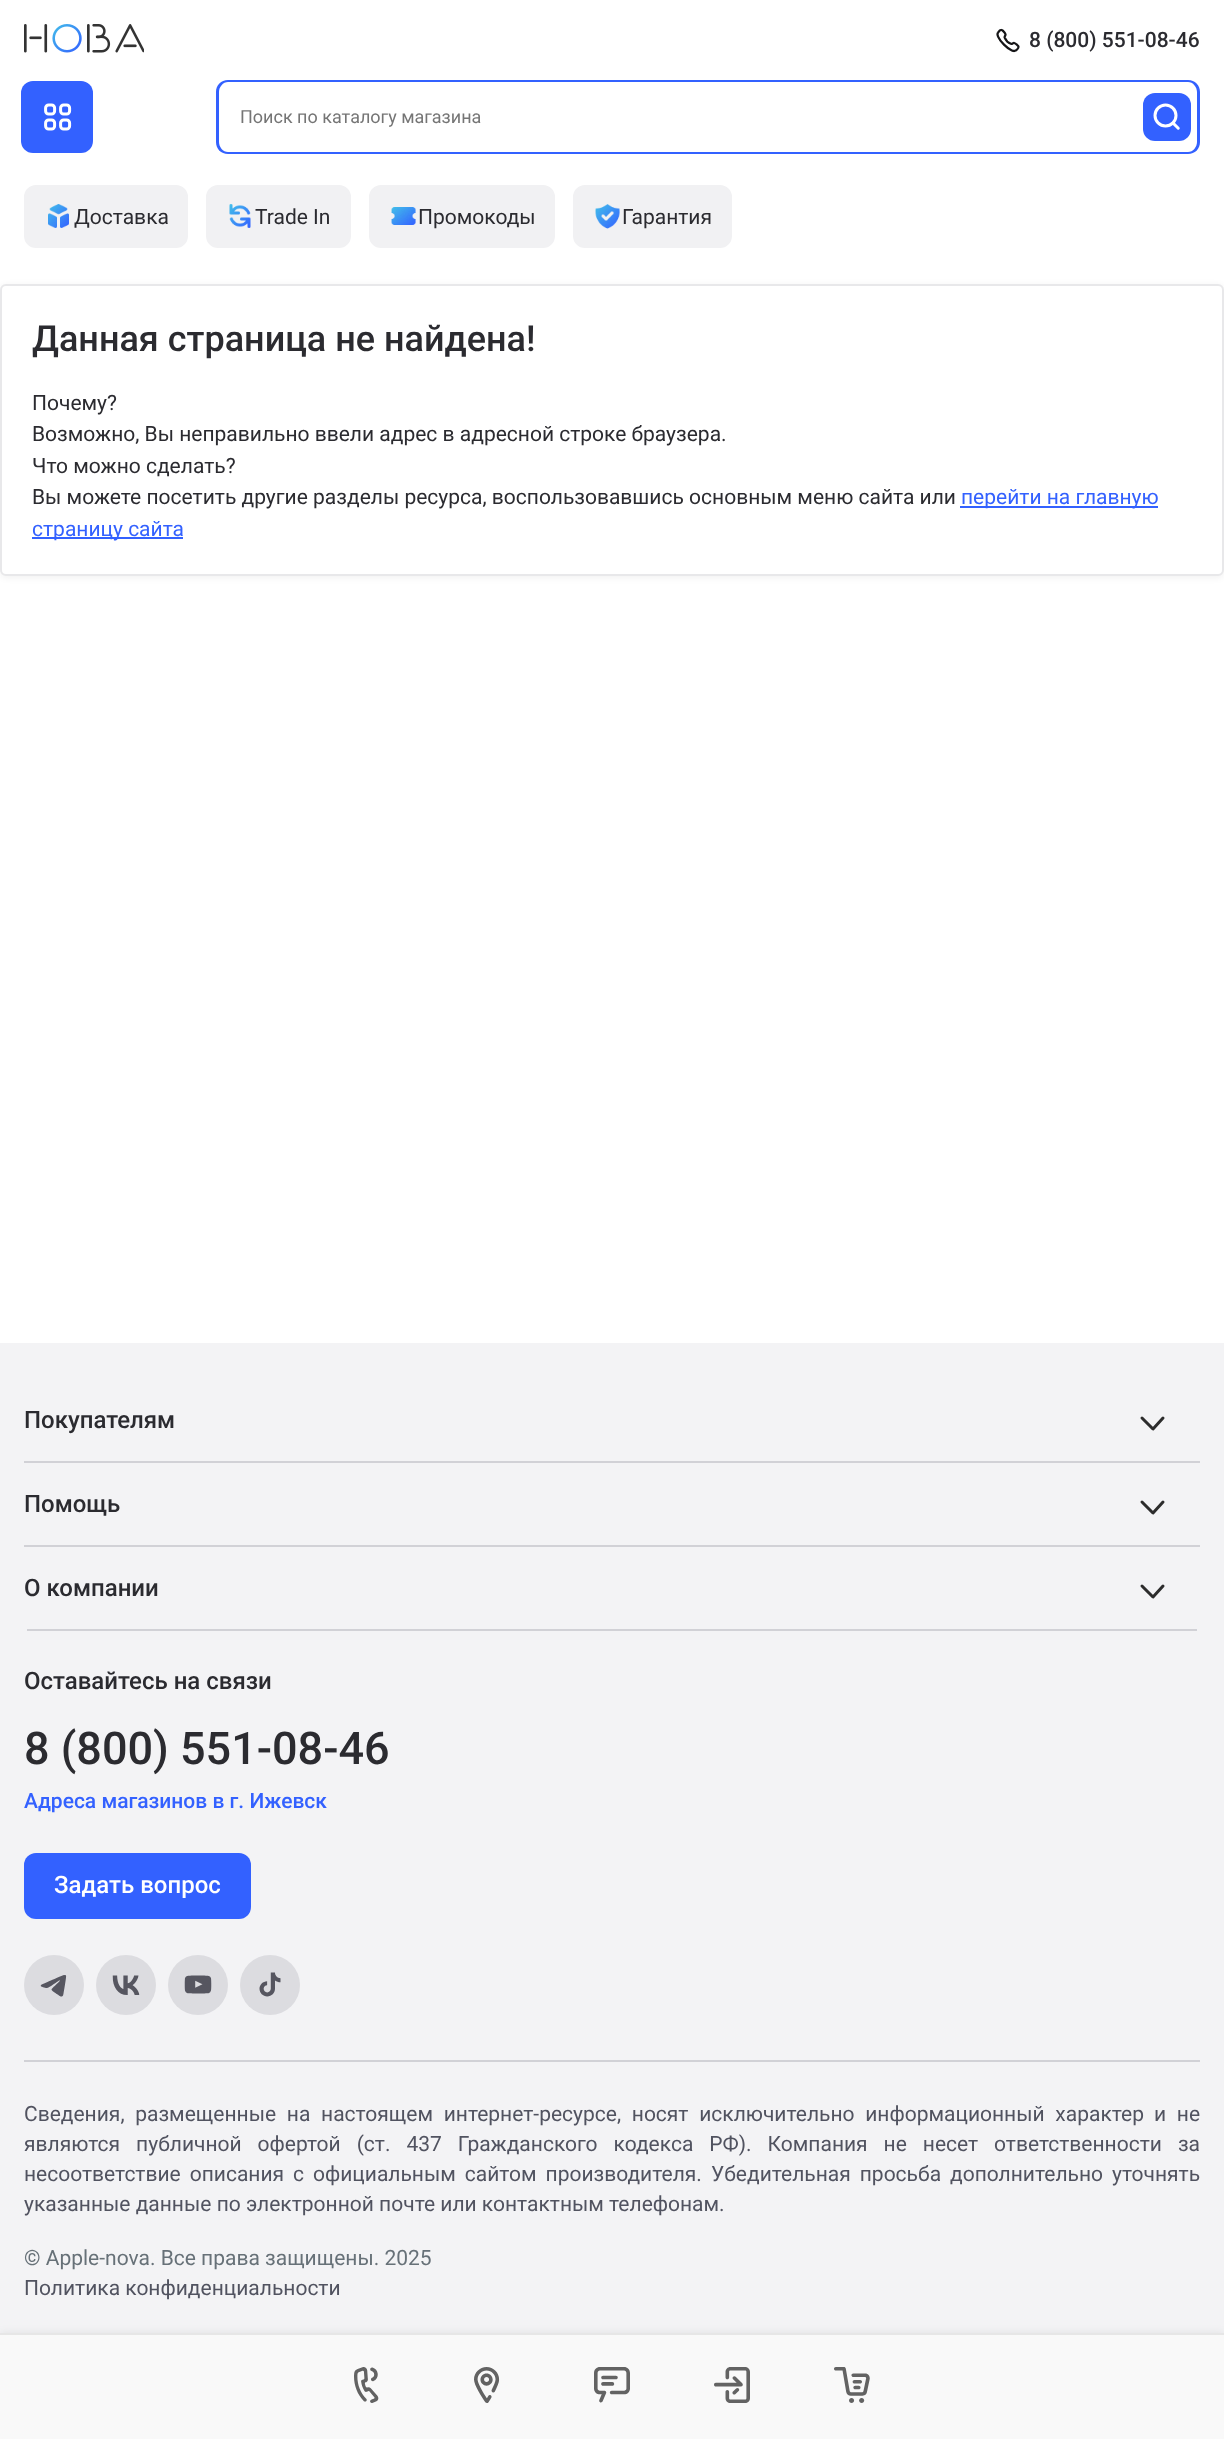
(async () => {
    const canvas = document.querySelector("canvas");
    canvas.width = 1224;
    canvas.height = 2439;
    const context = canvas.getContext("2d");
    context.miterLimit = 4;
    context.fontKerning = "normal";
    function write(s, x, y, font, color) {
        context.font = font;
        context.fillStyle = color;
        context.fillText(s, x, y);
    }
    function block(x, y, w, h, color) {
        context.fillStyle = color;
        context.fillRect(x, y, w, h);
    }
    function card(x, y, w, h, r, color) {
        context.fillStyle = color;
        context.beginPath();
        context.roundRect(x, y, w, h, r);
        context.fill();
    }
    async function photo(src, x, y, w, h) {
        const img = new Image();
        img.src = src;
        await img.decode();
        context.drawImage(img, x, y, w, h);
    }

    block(0, 0, 1224, 2439, "rgb(255, 255, 255)");
    await photo("media/1.png", 24, 24, 120, 29);
    await photo("media/2.png", 996, 28, 24, 25);
    write("8 (800) 551-08-46", 1029, 47, "500 21px Roboto", "rgb(43, 43, 48)");
    card(21, 81, 72, 72, 12, "rgb(51, 97, 255)");
    await photo("media/3.png", 44, 103, 28, 28);
    context.beginPath();
    context.moveTo(228, 80);
    context.lineTo(1143, 80);
    context.lineTo(1143, 154);
    context.lineTo(228, 154);
    context.bezierCurveTo(221, 154, 216, 149, 216, 142);
    context.lineTo(216, 92);
    context.bezierCurveTo(216, 85, 221, 80, 228, 80);
    context.closePath();
    context.moveTo(228, 82);
    context.lineTo(1143, 82);
    context.lineTo(1143, 152);
    context.lineTo(228, 152);
    context.bezierCurveTo(223, 152, 219, 147, 219, 142);
    context.lineTo(219, 92);
    context.bezierCurveTo(219, 87, 223, 82, 228, 82);
    context.closePath();
    context.fill("evenodd");
    write("Поиск по каталогу магазина", 240, 123, "18px Roboto", "rgb(117, 117, 117)");
    context.fillStyle = "rgb(51, 97, 255)";
    context.beginPath();
    context.moveTo(1143, 80);
    context.lineTo(1188, 80);
    context.bezierCurveTo(1195, 80, 1200, 85, 1200, 92);
    context.lineTo(1200, 142);
    context.bezierCurveTo(1200, 149, 1195, 154, 1188, 154);
    context.lineTo(1143, 154);
    context.closePath();
    context.moveTo(1143, 82);
    context.lineTo(1188, 82);
    context.bezierCurveTo(1193, 82, 1197, 87, 1197, 92);
    context.lineTo(1197, 142);
    context.bezierCurveTo(1197, 147, 1193, 152, 1188, 152);
    context.lineTo(1143, 152);
    context.closePath();
    context.fill("evenodd");
    card(1143, 93, 48, 48, 12, "rgb(51, 97, 255)");
    await photo("media/4.png", 1153, 103, 27, 27);
    context.fillStyle = "rgb(241, 241, 243)";
    context.beginPath();
    context.roundRect(25, 186, 162, 61, 11);
    context.fill();
    context.strokeStyle = "rgb(241, 241, 243)";
    context.lineWidth = 2;
    context.stroke();
    await photo("media/5.png", 48, 204, 21, 24);
    write("Доставка", 74, 224, "21px Roboto", "rgb(43, 43, 48)");
    context.fillStyle = "rgb(241, 241, 243)";
    context.beginPath();
    context.roundRect(207, 186, 143, 61, 11);
    context.fill();
    context.stroke();
    await photo("media/6.png", 229, 204, 22, 24);
    write("Trade In", 255, 224, "21px Roboto", "rgb(43, 43, 48)");
    context.fillStyle = "rgb(241, 241, 243)";
    context.beginPath();
    context.roundRect(370, 186, 184, 61, 11);
    context.fill();
    context.stroke();
    await photo("media/7.png", 391, 207, 25, 18);
    write("Промокоды", 418, 224, "21px Roboto", "rgb(43, 43, 48)");
    context.fillStyle = "rgb(241, 241, 243)";
    context.beginPath();
    context.roundRect(574, 186, 157, 61, 11);
    context.fill();
    context.stroke();
    await photo("media/8.png", 595, 204, 25, 25);
    write("Гарантия", 622, 224, "21px Roboto", "rgb(43, 43, 48)");
    context.fillStyle = "rgba(0, 0, 0, 0.05)";
    context.filter = "blur(3px)";
    context.beginPath();
    context.roundRect(0, 285, 1224, 293, 6);
    context.fill();
    context.filter = "none";
    context.fillStyle = "rgb(255, 255, 255)";
    context.beginPath();
    context.roundRect(1, 285, 1222, 290, 5);
    context.fill();
    context.strokeStyle = "rgb(232, 232, 234)";
    context.stroke();
    write("Данная страница не найдена!", 32, 351, "500 36px Roboto", "rgb(43, 43, 48)");
    write("Почему?", 32, 410, "21px Roboto", "rgb(43, 43, 48)");
    write("Возможно, Вы неправильно ввели адрес в адресной строке браузера.", 32, 441, "21px Roboto", "rgb(43, 43, 48)");
    write("Что можно сделать?", 32, 473, "21px Roboto", "rgb(43, 43, 48)");
    write("Вы можете посетить другие разделы ресурса, воспользовавшись основным меню сайта или", 32, 504, "21px Roboto", "rgb(43, 43, 48)");
    block(960, 506, 198, 2, "rgb(51, 97, 255)");
    write("перейти на главную", 961, 504, "21px Roboto", "rgb(51, 97, 255)");
    block(32, 537, 151, 2, "rgb(51, 97, 255)");
    write("страницу сайта", 32, 536, "21px Roboto", "rgb(51, 97, 255)");
    block(0, 1343, 1224, 990, "rgb(243, 243, 245)");
    block(24, 1461, 1176, 2, "rgb(209, 209, 214)");
    write("Покупателям", 24, 1428, "500 24px Roboto", "rgb(43, 43, 48)");
    context.beginPath();
    context.moveTo(1163, 1418);
    context.lineTo(1153, 1429);
    context.lineTo(1142, 1418);
    context.strokeStyle = "rgb(44, 44, 44)";
    context.lineWidth = 3;
    context.lineCap = "round";
    context.lineJoin = "round";
    context.stroke();
    block(24, 1545, 1176, 2, "rgb(209, 209, 214)");
    write("Помощь", 24, 1512, "500 24px Roboto", "rgb(43, 43, 48)");
    context.beginPath();
    context.moveTo(1163, 1502);
    context.lineTo(1153, 1513);
    context.lineTo(1142, 1502);
    context.stroke();
    block(27, 1629, 1170, 2, "rgb(209, 209, 214)");
    write("О компании", 24, 1596, "500 24px Roboto", "rgb(43, 43, 48)");
    context.beginPath();
    context.moveTo(1163, 1586);
    context.lineTo(1153, 1597);
    context.lineTo(1142, 1586);
    context.stroke();
    write("Оставайтесь на связи", 24, 1689, "500 24px Roboto", "rgb(43, 43, 48)");
    write("8 (800) 551-08-46", 24, 1764, "500 45px Roboto", "rgb(43, 43, 48)");
    write("Адреса магазинов в г. Ижевск", 24, 1808, "500 21px Roboto", "rgb(51, 97, 255)");
    card(24, 1853, 227, 66, 12, "rgb(51, 97, 255)");
    write("Задать вопрос", 54, 1893, "500 24px Roboto", "rgb(255, 255, 255)");
    context.fillStyle = "rgb(220, 220, 224)";
    context.beginPath();
    context.arc(54, 1985, 30, 0, Math.PI * 2);
    context.fill();
    await photo("media/9.png", 40, 1975, 27, 22);
    context.beginPath();
    context.arc(126, 1985, 30, 0, Math.PI * 2);
    context.fill();
    await photo("media/10.png", 112, 1975, 28, 20);
    context.beginPath();
    context.arc(198, 1985, 30, 0, Math.PI * 2);
    context.fill();
    await photo("media/11.png", 184, 1975, 28, 19);
    context.beginPath();
    context.arc(270, 1985, 30, 0, Math.PI * 2);
    context.fill();
    await photo("media/12.png", 259, 1972, 22, 25);
    block(24, 2060, 1176, 2, "rgb(209, 209, 214)");
    context.wordSpacing = "5.5px";
    write("Сведения, размещенные на настоящем интернет-ресурсе, носят исключительно информационный характер", 24, 2121, "21px Roboto", "rgb(81, 83, 96)");
    write("и не", 1154, 2121, "21px Roboto", "rgb(81, 83, 96)");
    context.wordSpacing = "10.75px";
    write("являются публичной офертой (ст. 437 Гражданского кодекса РФ). Компания не несет ответственности за", 24, 2151, "21px Roboto", "rgb(81, 83, 96)");
    context.wordSpacing = "3.75px";
    write("несоответствие описания с официальным сайтом производителя.", 24, 2181, "21px Roboto", "rgb(81, 83, 96)");
    write("Убедительная просьба дополнительно уточнять", 711, 2181, "21px Roboto", "rgb(81, 83, 96)");
    context.wordSpacing = "0px";
    write("указанные данные по электронной почте или контактным телефонам.", 24, 2211, "21px Roboto", "rgb(81, 83, 96)");
    write("© Apple-nova. Все права защищены. 2025", 24, 2265, "21px Roboto", "rgb(103, 113, 120)");
    write("Политика конфиденциальности", 24, 2295, "21px Roboto", "rgb(81, 83, 96)");
    context.fillStyle = "rgba(0, 0, 0, 0.08)";
    context.filter = "blur(4px)";
    context.beginPath();
    context.rect(0, 2333, 1224, 106);
    context.fill();
    context.filter = "none";
    block(0, 2335, 1224, 104, "rgb(249, 249, 249)");
    block(0, 2333, 1224, 2, "rgb(230, 230, 230)");
    await photo("media/13.png", 354, 2367, 25, 36);
    await photo("media/14.png", 474, 2367, 26, 36);
    await photo("media/15.png", 594, 2367, 36, 36);
    await photo("media/16.png", 714, 2367, 36, 36);
    await photo("media/17.png", 834, 2367, 36, 36);
})();
